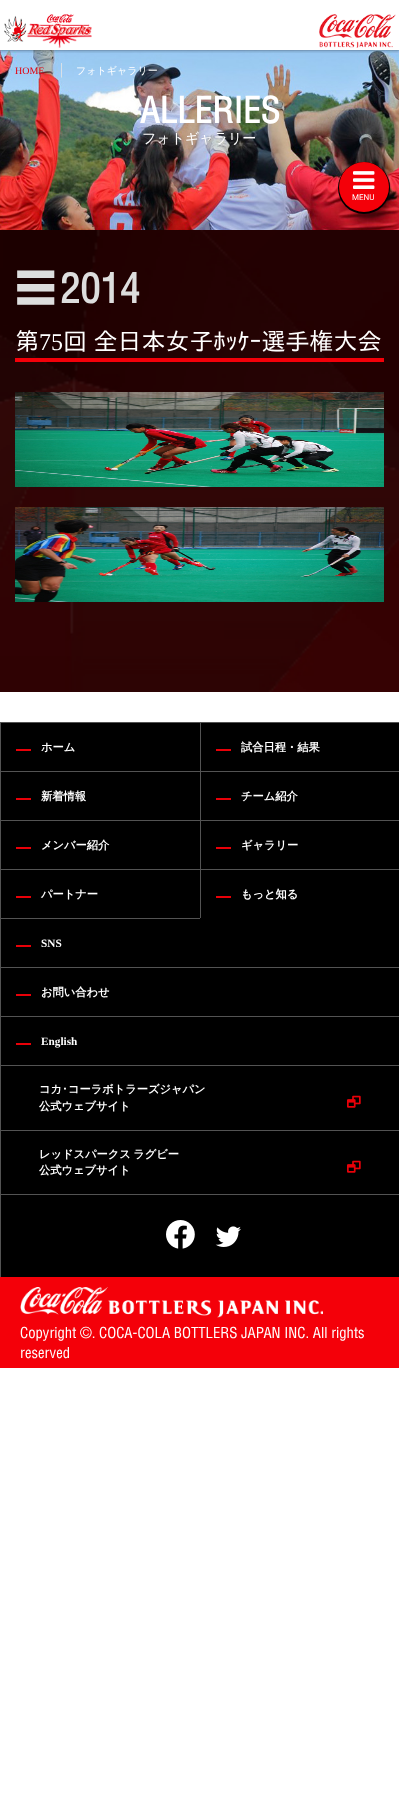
(async () => {
    const canvas = document.querySelector("canvas");
    canvas.width = 399;
    canvas.height = 1800;
    const context = canvas.getContext("2d");
    context.miterLimit = 4;
    context.fontKerning = "normal";
    function write(s, x, y, font, color) {
        context.font = font;
        context.fillStyle = color;
        context.fillText(s, x, y);
    }
    function block(x, y, w, h, color) {
        context.fillStyle = color;
        context.fillRect(x, y, w, h);
    }
    async function photo(src, x, y, w, h) {
        const img = new Image();
        img.src = src;
        await img.decode();
        context.drawImage(img, x, y, w, h);
    }

    block(0, 0, 399, 1800, "rgb(255, 255, 255)");
    await photo("media/3.png", 0, 50, 399, 180);
    context.strokeStyle = "rgba(0, 0, 0, 0.08)";
    context.strokeRect(-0.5, -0.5, 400, 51);
    context.save();
    context.beginPath();
    context.rect(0, 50, 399, 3);
    context.clip();
    context.fillStyle = "rgba(0, 0, 0, 0.16)";
    context.filter = "blur(1px)";
    context.beginPath();
    context.rect(0, 2, 399, 50);
    context.fill();
    context.filter = "none";
    context.restore();
    await photo("media/1.png", 4, 14, 88, 34);
    await photo("media/2.png", 319, 14, 77, 34);
    write("HOME", 15, 74, "10px Liberation Serif", "rgb(228, 0, 13)");
    write("|", 60, 74, "16px Liberation Serif", "rgb(229, 229, 229)");
    write("フォトギャラリー", 76, 74, "500 10px WenQuanYi Zen Hei", "rgb(255, 255, 255)");
    write("ALLERIES", 140, 123, "bold 35px Helvetica", "rgb(255, 255, 255)");
    write("フォトギャラリー", 142, 143, "500 14px WenQuanYi Zen Hei", "rgb(255, 255, 255)");
    context.fillStyle = "rgb(0, 0, 0)";
    context.filter = "blur(0.5px)";
    context.beginPath();
    context.roundRect(338, 162, 52, 52, 26);
    context.fill();
    context.filter = "none";
    context.fillStyle = "rgb(244, 0, 9)";
    context.beginPath();
    context.arc(364, 187, 25, 0, Math.PI * 2);
    context.fill();
    await photo("media/4.png", 353, 171, 22, 18);
    write("MENU", 352, 200, "8px Roboto", "rgb(255, 255, 255)");
    await photo("media/5.png", 0, 230, 399, 462);
    block(15, 358, 369, 4, "rgb(244, 0, 9)");
    write("☰", 15, 303, "bold 40px WenQuanYi Zen Hei", "rgb(221, 221, 221)");
    write("2014", 60, 303, "bold 40px Helvetica", "rgb(221, 221, 221)");
    write("第", 15, 350, "24px IPAPGothic", "rgb(255, 255, 255)");
    write("75", 39, 350, "24px Liberation Serif", "rgb(255, 255, 255)");
    write("回 全日本女子ﾎｯｹｰ選手権大会", 63, 350, "24px IPAPGothic", "rgb(255, 255, 255)");
    await photo("media/6.png", 15, 392, 369, 95);
    await photo("media/7.png", 15, 507, 369, 95);
    block(1, 723, 398, 554, "rgb(0, 0, 0)");
    block(0, 722, 399, 1, "rgb(83, 83, 83)");
    block(0, 722, 1, 49, "rgb(83, 83, 83)");
    block(16, 749, 15, 2, "rgb(233, 0, 8)");
    write("ホーム", 41, 751, "bold 11.25px WenQuanYi Zen Hei", "rgb(255, 255, 255)");
    block(200, 722, 1, 49, "rgb(83, 83, 83)");
    block(216, 749, 15, 2, "rgb(233, 0, 8)");
    write("試合日程・結果", 241, 751, "bold 11.25px WenQuanYi Zen Hei", "rgb(255, 255, 255)");
    block(0, 771, 399, 1, "rgb(83, 83, 83)");
    block(0, 771, 1, 49, "rgb(83, 83, 83)");
    block(16, 798, 15, 2, "rgb(233, 0, 8)");
    write("新着情報", 41, 800, "bold 11.25px WenQuanYi Zen Hei", "rgb(255, 255, 255)");
    block(200, 771, 1, 49, "rgb(83, 83, 83)");
    block(216, 798, 15, 2, "rgb(233, 0, 8)");
    write("チーム紹介", 241, 800, "bold 11.25px WenQuanYi Zen Hei", "rgb(255, 255, 255)");
    block(0, 820, 399, 1, "rgb(83, 83, 83)");
    block(0, 820, 1, 49, "rgb(83, 83, 83)");
    block(16, 847, 15, 2, "rgb(233, 0, 8)");
    write("メンバー紹介", 41, 849, "bold 11.25px WenQuanYi Zen Hei", "rgb(255, 255, 255)");
    block(200, 820, 1, 49, "rgb(83, 83, 83)");
    block(216, 847, 15, 2, "rgb(233, 0, 8)");
    write("ギャラリー", 241, 849, "bold 11.25px WenQuanYi Zen Hei", "rgb(255, 255, 255)");
    block(0, 869, 399, 1, "rgb(83, 83, 83)");
    block(0, 869, 1, 49, "rgb(83, 83, 83)");
    block(16, 896, 15, 2, "rgb(233, 0, 8)");
    write("パートナー", 41, 898, "bold 11.25px WenQuanYi Zen Hei", "rgb(255, 255, 255)");
    block(200, 869, 1, 49, "rgb(83, 83, 83)");
    block(216, 896, 15, 2, "rgb(233, 0, 8)");
    write("もっと知る", 241, 898, "bold 11.25px WenQuanYi Zen Hei", "rgb(255, 255, 255)");
    block(0, 918, 200, 1, "rgb(83, 83, 83)");
    block(0, 918, 1, 49, "rgb(83, 83, 83)");
    block(16, 945, 15, 2, "rgb(233, 0, 8)");
    write("SNS", 41, 947, "bold 11.25px Liberation Serif", "rgb(255, 255, 255)");
    block(0, 967, 399, 1, "rgb(83, 83, 83)");
    block(0, 967, 1, 49, "rgb(83, 83, 83)");
    block(16, 994, 15, 2, "rgb(233, 0, 8)");
    write("お問い合わせ", 41, 996, "bold 11.25px WenQuanYi Zen Hei", "rgb(255, 255, 255)");
    block(0, 1016, 399, 1, "rgb(83, 83, 83)");
    block(0, 1016, 1, 49, "rgb(83, 83, 83)");
    block(16, 1043, 15, 2, "rgb(233, 0, 8)");
    write("English", 41, 1045, "bold 11.25px Liberation Serif", "rgb(255, 255, 255)");
    block(0, 1065, 399, 1, "rgb(83, 83, 83)");
    block(0, 1065, 1, 65, "rgb(83, 83, 83)");
    write("コカ", 39, 1093, "bold 11.25px WenQuanYi Zen Hei", "rgb(255, 255, 255)");
    write("･", 62, 1093, "bold 11.25px IPAPGothic", "rgb(255, 255, 255)");
    write("コーラボトラーズジャパン", 68, 1093, "bold 11.25px WenQuanYi Zen Hei", "rgb(255, 255, 255)");
    write("公式ウェブサイト", 39, 1110, "bold 11.25px WenQuanYi Zen Hei", "rgb(255, 255, 255)");
    await photo("media/8.png", 347, 1095, 14, 13);
    block(0, 1130, 399, 1, "rgb(83, 83, 83)");
    block(0, 1130, 1, 64, "rgb(83, 83, 83)");
    context.wordSpacing = "-1px";
    write("レッドスパークス ラグビー", 39, 1158, "bold 11.25px WenQuanYi Zen Hei", "rgb(255, 255, 255)");
    context.wordSpacing = "0px";
    write("公式ウェブサイト", 39, 1174, "bold 11.25px WenQuanYi Zen Hei", "rgb(255, 255, 255)");
    await photo("media/8.png", 347, 1160, 14, 13);
    block(0, 1194, 399, 1, "rgb(83, 83, 83)");
    block(0, 1194, 1, 83, "rgb(83, 83, 83)");
    await photo("media/9.png", 166, 1220, 29, 29);
    await photo("media/10.png", 215, 1226, 26, 21);
    block(0, 1277, 399, 91, "rgb(244, 0, 9)");
    await photo("media/11.png", 20, 1287, 303, 31);
    write("Copyright ©. COCA-COLA BOTTLERS JAPAN INC. All rights", 20, 1338, "14.7px Helvetica", "rgb(255, 255, 255)");
    write("reserved", 20, 1358, "14.7px Helvetica", "rgb(255, 255, 255)");
})();
